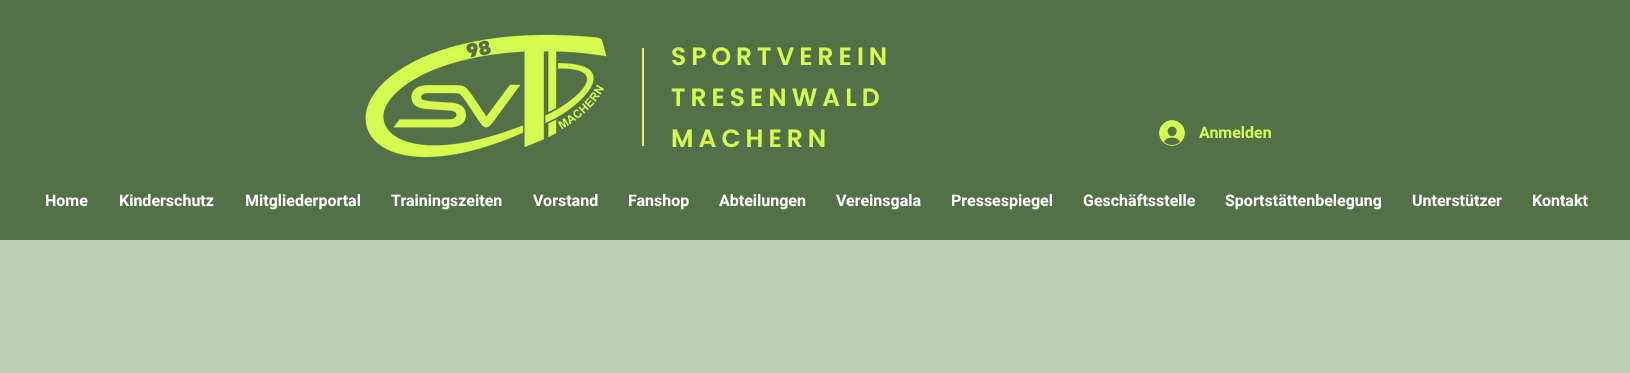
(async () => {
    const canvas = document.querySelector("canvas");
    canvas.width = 1630;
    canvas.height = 373;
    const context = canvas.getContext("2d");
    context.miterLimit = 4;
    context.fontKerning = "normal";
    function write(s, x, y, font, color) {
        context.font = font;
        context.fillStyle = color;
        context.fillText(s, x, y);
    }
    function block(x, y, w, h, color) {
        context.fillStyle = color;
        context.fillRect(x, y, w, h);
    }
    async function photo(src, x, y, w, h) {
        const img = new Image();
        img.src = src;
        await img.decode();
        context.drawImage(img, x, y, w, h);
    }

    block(0, 0, 1630, 373, "rgb(83, 113, 73)");
    await photo("media/1.png", 365, 34, 242, 124);
    block(642, 48, 2, 98, "rgb(214, 251, 81)");
    context.letterSpacing = "5px";
    write("SPORTVEREIN", 671, 65, "600 25px Poppins", "rgb(214, 251, 81)");
    write("TRESENWALD", 671, 106, "600 25px Poppins", "rgb(214, 251, 81)");
    write("MACHERN", 671, 147, "600 25px Poppins", "rgb(214, 251, 81)");
    await photo("media/2.png", 1159, 120, 26, 26);
    context.letterSpacing = "0px";
    write("Anmelden", 1199, 138, "bold 16px Roboto", "rgb(214, 251, 81)");
    write("Home", 45, 206, "bold 16px Roboto", "rgb(255, 255, 255)");
    write("Kinderschutz", 119, 206, "bold 16px Roboto", "rgb(255, 255, 255)");
    write("Mitgliederportal", 245, 206, "bold 16px Roboto", "rgb(255, 255, 255)");
    write("Trainingszeiten", 391, 206, "bold 16px Roboto", "rgb(255, 255, 255)");
    write("Vorstand", 533, 206, "bold 16px Roboto", "rgb(255, 255, 255)");
    write("Fanshop", 628, 206, "bold 16px Roboto", "rgb(255, 255, 255)");
    write("Abteilungen", 719, 206, "bold 16px Roboto", "rgb(255, 255, 255)");
    write("Vereinsgala", 836, 206, "bold 16px Roboto", "rgb(255, 255, 255)");
    write("Pressespiegel", 951, 206, "bold 16px Roboto", "rgb(255, 255, 255)");
    write("Geschäftsstelle", 1083, 206, "bold 16px Roboto", "rgb(255, 255, 255)");
    write("Sportstättenbelegung", 1225, 206, "bold 16px Roboto", "rgb(255, 255, 255)");
    write("Unterstützer", 1412, 206, "bold 16px Roboto", "rgb(255, 255, 255)");
    write("Kontakt", 1532, 206, "bold 16px Roboto", "rgb(255, 255, 255)");
    block(0, 240, 1630, 133, "rgb(189, 208, 183)");
})();
